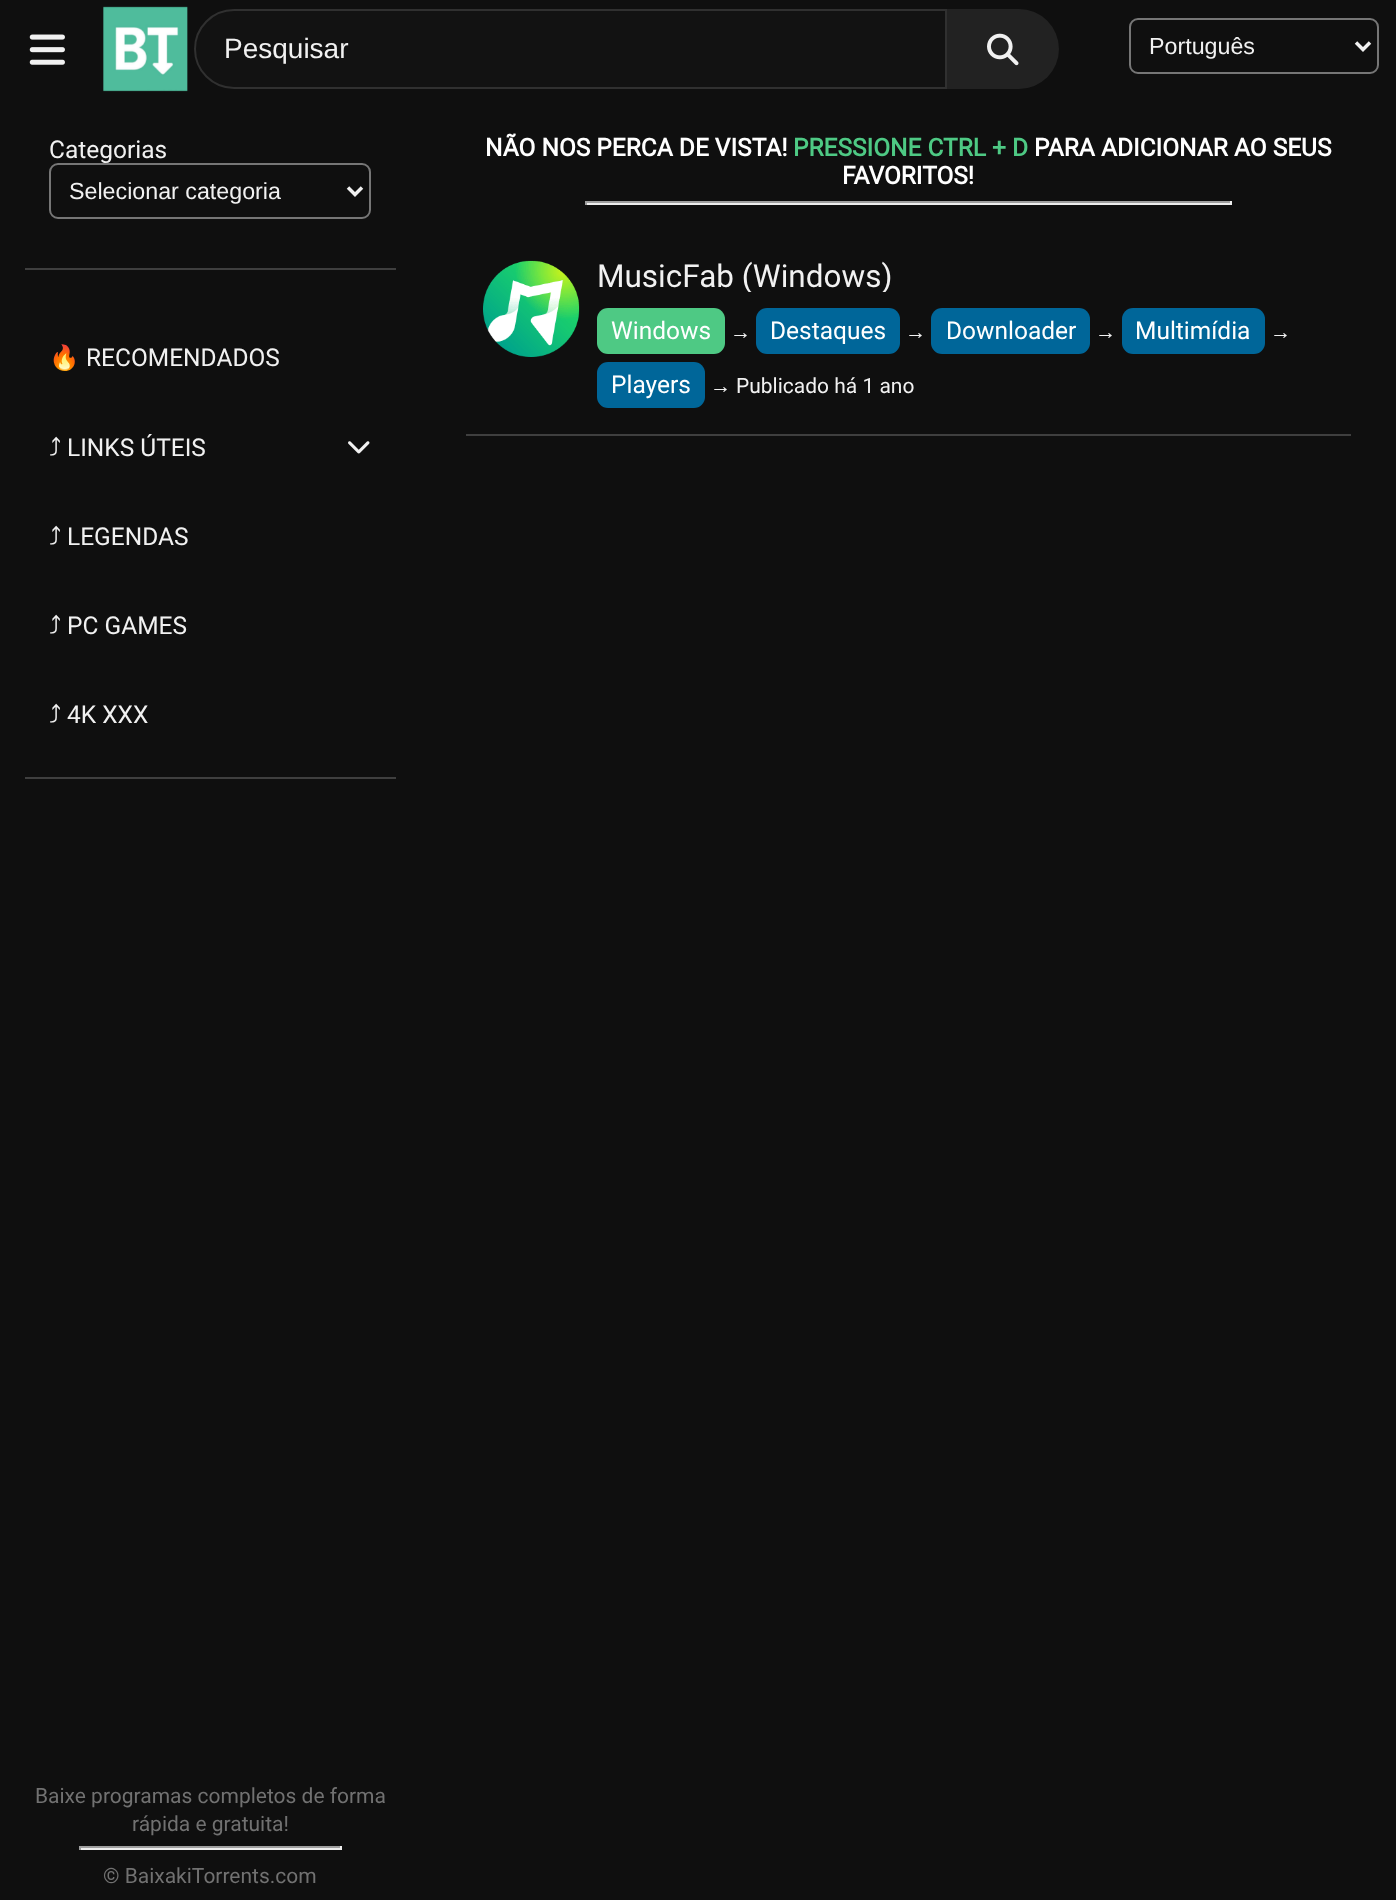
(async () => {
    const canvas = document.querySelector("canvas");
    canvas.width = 1396;
    canvas.height = 1900;
    const context = canvas.getContext("2d");
    context.miterLimit = 4;
    context.fontKerning = "normal";
    function write(s, x, y, font, color) {
        context.font = font;
        context.fillStyle = color;
        context.fillText(s, x, y);
    }
    function block(x, y, w, h, color) {
        context.fillStyle = color;
        context.fillRect(x, y, w, h);
    }
    function card(x, y, w, h, r, color) {
        context.fillStyle = color;
        context.beginPath();
        context.roundRect(x, y, w, h, r);
        context.fill();
    }
    async function photo(src, x, y, w, h) {
        const img = new Image();
        img.src = src;
        await img.decode();
        context.drawImage(img, x, y, w, h);
    }

    block(0, 0, 1396, 1900, "rgb(15, 15, 15)");
    await photo("media/1.png", 29, 34, 36, 31);
    await photo("media/2.png", 103, 6, 85, 86);
    context.fillStyle = "rgb(18, 18, 18)";
    context.beginPath();
    context.roundRect(195, 10, 751, 78, [39, 0, 0, 39]);
    context.fill();
    context.strokeStyle = "rgb(48, 48, 48)";
    context.lineWidth = 2;
    context.stroke();
    write("Pesquisar", 224, 58, "28px Liberation Sans", "rgb(241, 241, 241)");
    context.fillStyle = "rgb(34, 34, 34)";
    context.beginPath();
    context.roundRect(947, 9, 112, 80, [0, 40, 40, 0]);
    context.fill();
    await photo("media/3.png", 987, 33, 32, 33);
    context.beginPath();
    context.roundRect(1130, 19, 248, 54, 8);
    context.strokeStyle = "rgb(118, 118, 118)";
    context.stroke();
    context.beginPath();
    context.moveTo(1356, 42.5);
    context.lineTo(1363, 49.5);
    context.lineTo(1370, 42.5);
    context.strokeStyle = "rgb(241, 241, 241)";
    context.lineWidth = 3.5;
    context.stroke();
    write("Português", 1149, 54, "23.25px Liberation Sans", "rgb(241, 241, 241)");
    block(25, 268, 371, 2, "rgb(63, 63, 63)");
    write("Categorias", 49, 158, "24.5px Roboto", "rgb(241, 241, 241)");
    context.beginPath();
    context.roundRect(50, 164, 320, 54, 8);
    context.strokeStyle = "rgb(118, 118, 118)";
    context.lineWidth = 2;
    context.stroke();
    context.beginPath();
    context.moveTo(348, 187.5);
    context.lineTo(355, 194.5);
    context.lineTo(362, 187.5);
    context.strokeStyle = "rgb(241, 241, 241)";
    context.lineWidth = 3.5;
    context.stroke();
    write("Selecionar categoria", 69, 199, "23.25px Liberation Sans", "rgb(241, 241, 241)");
    block(25, 777, 371, 2, "rgb(63, 63, 63)");
    write("🔥", 49, 366, "24.5px Noto Color Emoji", "rgb(241, 241, 241)");
    write("RECOMENDADOS", 86, 366, "24.5px Roboto", "rgb(241, 241, 241)");
    write("⤴", 49, 456, "24.5px IPAGothic", "rgb(241, 241, 241)");
    write("LINKS ÚTEIS", 67, 456, "24.5px Roboto", "rgb(241, 241, 241)");
    await photo("media/4.png", 348, 441, 22, 13);
    write("⤴", 49, 545, "24.5px IPAGothic", "rgb(241, 241, 241)");
    write("LEGENDAS", 67, 545, "24.5px Roboto", "rgb(241, 241, 241)");
    write("⤴", 49, 634, "24.5px IPAGothic", "rgb(241, 241, 241)");
    write("PC GAMES", 67, 634, "24.5px Roboto", "rgb(241, 241, 241)");
    write("⤴", 49, 723, "24.5px IPAGothic", "rgb(241, 241, 241)");
    write("4K XXX", 67, 723, "24.5px Roboto", "rgb(241, 241, 241)");
    write("Baixe programas completos de forma", 35, 1803, "21px Roboto", "rgb(113, 113, 113)");
    write("rápida e gratuita!", 132, 1831, "21px Roboto", "rgb(113, 113, 113)");
    block(79, 1846, 262, 2, "rgb(159, 159, 159)");
    block(340, 1846, 2, 4, "rgb(238, 238, 238)");
    block(79, 1848, 262, 2, "rgb(238, 238, 238)");
    block(79, 1846, 2, 4, "rgb(159, 159, 159)");
    write("© BaixakiTorrents.com", 103, 1883, "21px Roboto", "rgb(113, 113, 113)");
    write("NÃO NOS PERCA DE VISTA!", 485, 156, "bold 24.5px Roboto", "rgb(255, 255, 255)");
    write("PRESSIONE CTRL + D", 793, 156, "bold 24.5px Roboto", "rgb(78, 201, 132)");
    write("PARA ADICIONAR AO SEUS", 1034, 156, "bold 24.5px Roboto", "rgb(255, 255, 255)");
    write("FAVORITOS!", 842, 184, "bold 24.5px Roboto", "rgb(255, 255, 255)");
    block(585, 201, 647, 2, "rgb(159, 159, 159)");
    block(1230, 201, 2, 4, "rgb(238, 238, 238)");
    block(585, 203, 647, 2, "rgb(238, 238, 238)");
    block(585, 201, 2, 4, "rgb(159, 159, 159)");
    block(466, 434, 885, 2, "rgb(63, 63, 63)");
    await photo("media/5.png", 483, 260, 97, 97);
    context.save();
    context.beginPath();
    context.rect(597, 261, 737, 31);
    context.clip();
    write("MusicFab (Windows)", 597, 287, "31.5px Roboto", "rgb(241, 241, 241)");
    context.restore();
    card(597, 308, 128, 46, 11, "rgb(78, 201, 132)");
    write("Windows", 611, 339, "24.5px Roboto", "rgb(255, 255, 255)");
    write("→", 730, 339, "21px Liberation Sans", "rgb(241, 241, 241)");
    card(756, 308, 144, 46, 11, "rgb(0, 102, 153)");
    write("Destaques", 770, 339, "24.5px Roboto", "rgb(255, 255, 255)");
    write("→", 905, 339, "21px Liberation Sans", "rgb(241, 241, 241)");
    card(931, 308, 159, 46, 11, "rgb(0, 102, 153)");
    write("Downloader", 946, 339, "24.5px Roboto", "rgb(255, 255, 255)");
    write("→", 1095, 339, "21px Liberation Sans", "rgb(241, 241, 241)");
    card(1122, 308, 143, 46, 11, "rgb(0, 102, 153)");
    write("Multimídia", 1135, 339, "24.5px Roboto", "rgb(255, 255, 255)");
    write("→", 1270, 339, "21px Liberation Sans", "rgb(241, 241, 241)");
    card(597, 362, 108, 46, 11, "rgb(0, 102, 153)");
    write("Players", 611, 393, "24.5px Roboto", "rgb(255, 255, 255)");
    write("→", 710, 393, "21px Liberation Sans", "rgb(241, 241, 241)");
    write("Publicado há 1 ano", 736, 393, "21px Roboto", "rgb(241, 241, 241)");
})();
